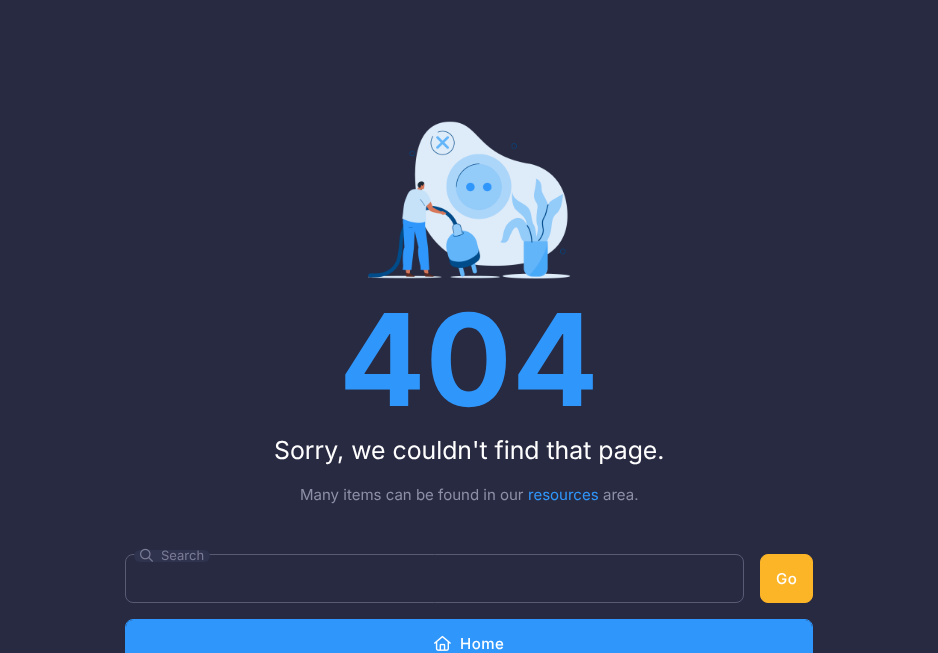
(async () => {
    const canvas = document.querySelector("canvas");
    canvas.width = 938;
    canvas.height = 653;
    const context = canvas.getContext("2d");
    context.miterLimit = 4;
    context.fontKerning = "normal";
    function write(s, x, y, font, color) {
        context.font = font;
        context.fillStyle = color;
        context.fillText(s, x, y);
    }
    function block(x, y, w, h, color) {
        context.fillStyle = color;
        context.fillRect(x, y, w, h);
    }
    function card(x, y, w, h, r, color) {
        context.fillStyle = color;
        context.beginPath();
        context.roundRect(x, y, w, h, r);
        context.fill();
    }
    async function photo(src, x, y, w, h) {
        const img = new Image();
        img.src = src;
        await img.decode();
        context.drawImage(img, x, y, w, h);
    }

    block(0, 0, 938, 653, "rgb(40, 42, 66)");
    await photo("media/1.png", 368, 121, 203, 158);
    write("404", 339, 406, "bold 128px Inter", "rgb(47, 151, 252)");
    write("Sorry, we couldn't find that page.", 274, 459, "24.8px Inter", "rgb(255, 255, 255)");
    write("Many items can be found in our", 300, 500, "15px Inter", "rgb(141, 143, 167)");
    write("resources", 528, 500, "15px Inter", "rgb(47, 151, 252)");
    write("area.", 603, 500, "15px Inter", "rgb(141, 143, 167)");
    context.beginPath();
    context.roundRect(125.5, 554.5, 618, 48, 7.5);
    context.strokeStyle = "rgb(89, 91, 117)";
    context.stroke();
    card(134, 550, 76, 12, 6, "rgb(48, 51, 78)");
    await photo("media/2.png", 140, 548, 13, 14);
    write("Search", 161, 560, "13px Inter", "rgb(123, 124, 149)");
    context.fillStyle = "rgb(253, 181, 40)";
    context.beginPath();
    context.roundRect(760.5, 554.5, 52, 48, 7.5);
    context.fill();
    context.strokeStyle = "rgb(253, 181, 40)";
    context.stroke();
    context.letterSpacing = "0.5px";
    write("Go", 776, 584, "500 15px Inter", "rgb(255, 255, 255)");
    card(126, 620, 686, 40, 7, "rgb(47, 151, 252)");
    context.beginPath();
    context.roundRect(125.5, 619.5, 687, 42, 7.5);
    context.strokeStyle = "rgb(47, 151, 252)";
    context.stroke();
    await photo("media/3.png", 434, 635, 17, 16);
    write("Home", 460, 649, "500 15px Inter", "rgb(255, 255, 255)");
})();
